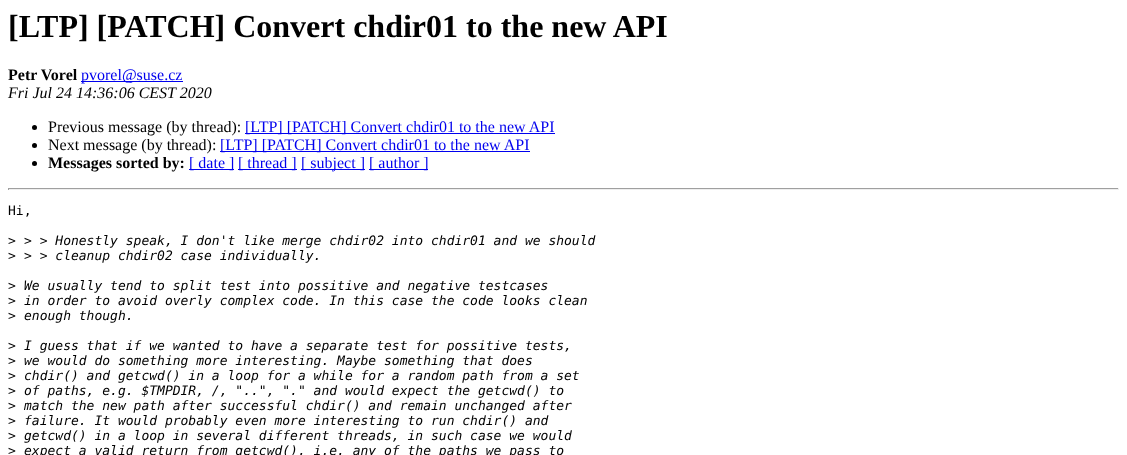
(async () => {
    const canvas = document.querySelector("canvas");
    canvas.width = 1127;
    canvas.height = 455;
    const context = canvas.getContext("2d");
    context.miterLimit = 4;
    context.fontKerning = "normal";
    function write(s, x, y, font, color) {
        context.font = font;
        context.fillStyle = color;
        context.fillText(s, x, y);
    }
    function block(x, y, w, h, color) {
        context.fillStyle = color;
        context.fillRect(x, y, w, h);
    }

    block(0, 0, 1127, 455, "rgb(255, 255, 255)");
    write("[LTP] [PATCH] Convert chdir01 to the new API", 8, 37, "bold 32px Liberation Serif", "rgb(0, 0, 0)");
    write("Petr Vorel", 8, 80, "bold 16px Liberation Serif", "rgb(0, 0, 0)");
    block(81, 81, 102, 1, "rgb(0, 0, 238)");
    write("pvorel@suse.cz", 81, 80, "16px Liberation Serif", "rgb(0, 0, 238)");
    write("Fri Jul 24 14:36:06 CEST 2020", 8, 98, "italic 16px Liberation Serif", "rgb(0, 0, 0)");
    context.beginPath();
    context.arc(34.5, 127.5, 2.5, 0, Math.PI * 2);
    context.fill();
    write("Previous message (by thread):", 48, 132, "16px Liberation Serif", "rgb(0, 0, 0)");
    block(245, 133, 310, 1, "rgb(0, 0, 238)");
    write("[LTP] [PATCH] Convert chdir01 to the new API", 245, 132, "16px Liberation Serif", "rgb(0, 0, 238)");
    context.fillStyle = "rgb(0, 0, 0)";
    context.beginPath();
    context.arc(34.5, 145.5, 2.5, 0, Math.PI * 2);
    context.fill();
    write("Next message (by thread):", 48, 150, "16px Liberation Serif", "rgb(0, 0, 0)");
    block(220, 151, 310, 1, "rgb(0, 0, 238)");
    write("[LTP] [PATCH] Convert chdir01 to the new API", 220, 150, "16px Liberation Serif", "rgb(0, 0, 238)");
    context.fillStyle = "rgb(0, 0, 0)";
    context.beginPath();
    context.arc(34.5, 163.5, 2.5, 0, Math.PI * 2);
    context.fill();
    write("Messages sorted by:", 48, 168, "bold 16px Liberation Serif", "rgb(0, 0, 0)");
    block(189, 169, 45, 1, "rgb(0, 0, 238)");
    write("[ date ]", 189, 168, "16px Liberation Serif", "rgb(0, 0, 238)");
    block(238, 169, 59, 1, "rgb(0, 0, 238)");
    write("[ thread ]", 238, 168, "16px Liberation Serif", "rgb(0, 0, 238)");
    block(301, 169, 64, 1, "rgb(0, 0, 238)");
    write("[ subject ]", 301, 168, "16px Liberation Serif", "rgb(0, 0, 238)");
    block(369, 169, 59, 1, "rgb(0, 0, 238)");
    write("[ author ]", 369, 168, "16px Liberation Serif", "rgb(0, 0, 238)");
    block(8, 188, 1111, 1, "rgb(159, 159, 159)");
    block(1118, 188, 1, 2, "rgb(238, 238, 238)");
    block(8, 189, 1111, 1, "rgb(238, 238, 238)");
    block(8, 188, 1, 2, "rgb(159, 159, 159)");
    write("Hi,", 8, 215, "13px DejaVu Sans Mono", "rgb(0, 0, 0)");
    write(">", 8, 245, "13px DejaVu Sans Mono", "rgb(0, 0, 0)");
    write("> > Honestly speak, I don't like merge chdir02 into chdir01 and we should", 24, 245, "italic 13px DejaVu Sans Mono", "rgb(0, 0, 0)");
    write(">", 8, 260, "13px DejaVu Sans Mono", "rgb(0, 0, 0)");
    write("> > cleanup chdir02 case individually.", 24, 260, "italic 13px DejaVu Sans Mono", "rgb(0, 0, 0)");
    write(">", 8, 290, "13px DejaVu Sans Mono", "rgb(0, 0, 0)");
    write("We usually tend to split test into possitive and negative testcases", 24, 290, "italic 13px DejaVu Sans Mono", "rgb(0, 0, 0)");
    write(">", 8, 305, "13px DejaVu Sans Mono", "rgb(0, 0, 0)");
    write("in order to avoid overly complex code. In this case the code looks clean", 24, 305, "italic 13px DejaVu Sans Mono", "rgb(0, 0, 0)");
    write(">", 8, 320, "13px DejaVu Sans Mono", "rgb(0, 0, 0)");
    write("enough though.", 24, 320, "italic 13px DejaVu Sans Mono", "rgb(0, 0, 0)");
    write(">", 8, 350, "13px DejaVu Sans Mono", "rgb(0, 0, 0)");
    write("I guess that if we wanted to have a separate test for possitive tests,", 24, 350, "italic 13px DejaVu Sans Mono", "rgb(0, 0, 0)");
    write(">", 8, 365, "13px DejaVu Sans Mono", "rgb(0, 0, 0)");
    write("we would do something more interesting. Maybe something that does", 24, 365, "italic 13px DejaVu Sans Mono", "rgb(0, 0, 0)");
    write(">", 8, 380, "13px DejaVu Sans Mono", "rgb(0, 0, 0)");
    write("chdir() and getcwd() in a loop for a while for a random path from a set", 24, 380, "italic 13px DejaVu Sans Mono", "rgb(0, 0, 0)");
    write(">", 8, 395, "13px DejaVu Sans Mono", "rgb(0, 0, 0)");
    write("of paths, e.g. $TMPDIR, /, \"..\", \".\" and would expect the getcwd() to", 24, 395, "italic 13px DejaVu Sans Mono", "rgb(0, 0, 0)");
    write(">", 8, 410, "13px DejaVu Sans Mono", "rgb(0, 0, 0)");
    write("match the new path after successful chdir() and remain unchanged after", 24, 410, "italic 13px DejaVu Sans Mono", "rgb(0, 0, 0)");
    write(">", 8, 425, "13px DejaVu Sans Mono", "rgb(0, 0, 0)");
    write("failure. It would probably even more interesting to run chdir() and", 24, 425, "italic 13px DejaVu Sans Mono", "rgb(0, 0, 0)");
    write(">", 8, 440, "13px DejaVu Sans Mono", "rgb(0, 0, 0)");
    write("getcwd() in a loop in several different threads, in such case we would", 24, 440, "italic 13px DejaVu Sans Mono", "rgb(0, 0, 0)");
    write(">", 8, 455, "13px DejaVu Sans Mono", "rgb(0, 0, 0)");
    write("expect a valid return from getcwd(), i.e. any of the paths we pass to", 24, 455, "italic 13px DejaVu Sans Mono", "rgb(0, 0, 0)");
})();
